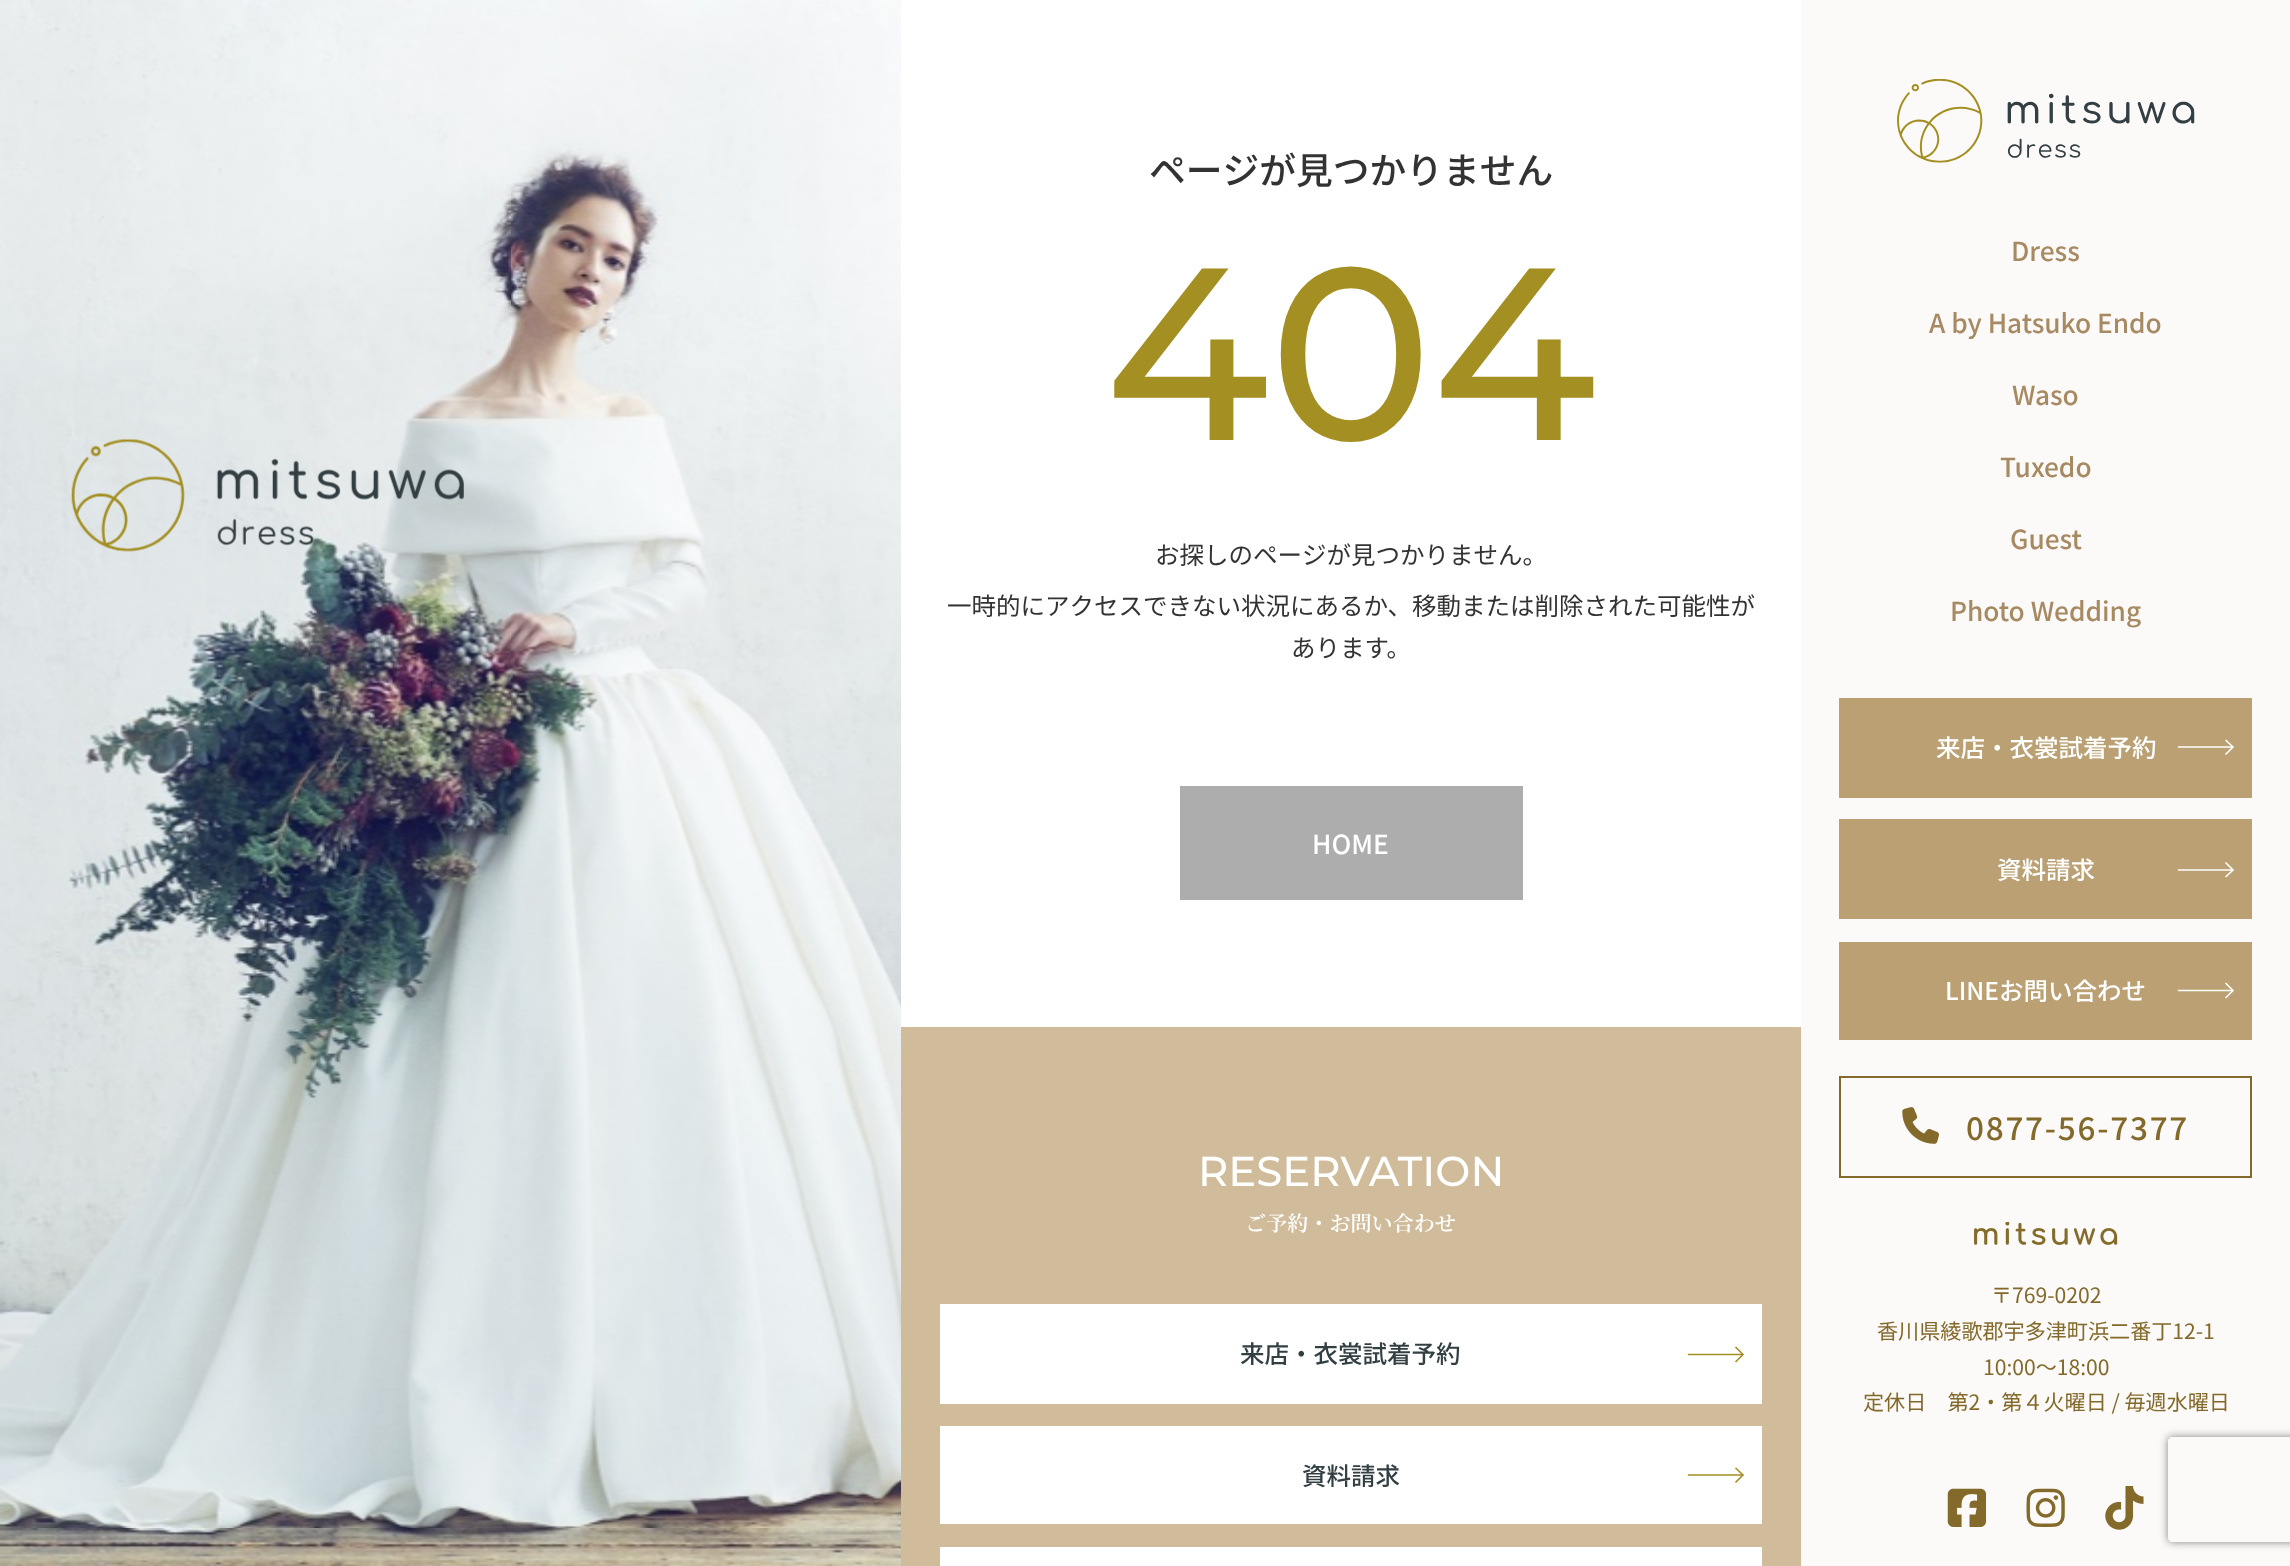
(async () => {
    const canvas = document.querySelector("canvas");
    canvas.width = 2290;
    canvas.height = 1566;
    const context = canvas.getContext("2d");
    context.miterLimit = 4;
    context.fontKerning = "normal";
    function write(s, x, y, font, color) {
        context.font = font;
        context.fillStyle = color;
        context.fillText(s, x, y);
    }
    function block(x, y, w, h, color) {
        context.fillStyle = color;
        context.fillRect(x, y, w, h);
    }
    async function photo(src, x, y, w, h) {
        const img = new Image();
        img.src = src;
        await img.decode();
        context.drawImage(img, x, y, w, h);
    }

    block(0, 0, 2290, 1566, "rgb(255, 255, 255)");
    await photo("media/1.png", 0, 0, 901, 1566);
    await photo("media/2.png", 71, 439, 393, 113);
    write("ページが見つかりません", 1149, 184, "500 36.75px Noto Sans JP", "rgb(51, 51, 51)");
    write("404", 1105, 440, "500 245px Montserrat", "rgb(164, 143, 35)");
    write("お探しのページが見つかりません。", 1155, 564, "24.5px Noto Sans JP", "rgb(51, 51, 51)");
    write("一時的にアクセスできない状況にあるか、移動または削除された可能性が", 947, 615, "24.5px Noto Sans JP", "rgb(51, 51, 51)");
    write("あります。", 1291, 657, "24.5px Noto Sans JP", "rgb(51, 51, 51)");
    block(1180, 786, 343, 114, "rgb(173, 173, 173)");
    write("HOME", 1312, 854, "500 26.25px Noto Sans JP", "rgb(255, 255, 255)");
    block(1801, 0, 489, 1566, "rgb(251, 250, 249)");
    await photo("media/3.png", 1897, 79, 298, 84);
    write("Dress", 2011, 261, "500 26.25px Noto Sans JP", "rgb(167, 138, 98)");
    write("A by Hatsuko Endo", 1929, 333, "500 26.25px Noto Sans JP", "rgb(167, 138, 98)");
    write("Waso", 2012, 405, "500 26.25px Noto Sans JP", "rgb(167, 138, 98)");
    write("Tuxedo", 2000, 477, "500 26.25px Noto Sans JP", "rgb(167, 138, 98)");
    write("Guest", 2010, 549, "500 26.25px Noto Sans JP", "rgb(167, 138, 98)");
    write("Photo Wedding", 1950, 621, "500 26.25px Noto Sans JP", "rgb(167, 138, 98)");
    block(1839, 698, 413, 100, "rgb(186, 160, 115)");
    write("来店・衣裳試着予約", 1936, 757, "500 24.5px Noto Sans JP", "rgb(255, 255, 255)");
    context.beginPath();
    context.moveTo(2178.5, 747);
    context.lineTo(2232.5, 747);
    context.strokeStyle = "rgb(255, 255, 255)";
    context.lineWidth = 1.6;
    context.lineCap = "round";
    context.stroke();
    context.beginPath();
    context.moveTo(2225.5, 740);
    context.lineTo(2233, 747);
    context.lineTo(2225.5, 754.5);
    context.lineCap = "butt";
    context.stroke();
    block(1839, 819, 413, 100, "rgb(186, 160, 115)");
    write("資料請求", 1997, 879, "500 24.5px Noto Sans JP", "rgb(255, 255, 255)");
    context.beginPath();
    context.moveTo(2178.5, 870);
    context.lineTo(2232.5, 870);
    context.lineCap = "round";
    context.stroke();
    context.beginPath();
    context.moveTo(2225.5, 862.5);
    context.lineTo(2233, 870);
    context.lineTo(2225.5, 877);
    context.lineCap = "butt";
    context.stroke();
    block(1839, 942, 413, 98, "rgb(186, 160, 115)");
    write("LINEお問い合わせ", 1945, 1000, "500 24.5px Noto Sans JP", "rgb(255, 255, 255)");
    context.beginPath();
    context.moveTo(2178.5, 990.5);
    context.lineTo(2232.5, 990.5);
    context.lineCap = "round";
    context.stroke();
    context.beginPath();
    context.moveTo(2225.5, 983);
    context.lineTo(2233, 990.5);
    context.lineTo(2225.5, 998);
    context.lineCap = "butt";
    context.stroke();
    context.strokeStyle = "rgb(132, 106, 42)";
    context.lineWidth = 2;
    context.strokeRect(1840, 1077, 411, 100);
    await photo("media/4.png", 1902, 1107, 37, 37);
    context.letterSpacing = "1.75px";
    write("0877-56-7377", 1966, 1140, "500 31.5px Noto Sans JP", "rgb(132, 106, 42)");
    await photo("media/5.png", 1974, 1222, 144, 23);
    context.letterSpacing = "0px";
    write("〒769-0202", 1991, 1303, "21.1px Noto Sans JP", "rgb(132, 106, 42)");
    write("香川県綾歌郡宇多津町浜二番丁12-1", 1877, 1339, "21.1px Noto Sans JP", "rgb(132, 106, 42)");
    write("10:00～18:00", 1983, 1375, "21.1px Noto Sans JP", "rgb(132, 106, 42)");
    write("定休日　第2・第４火曜日 / 毎週水曜日", 1863, 1410, "21.1px Noto Sans JP", "rgb(132, 106, 42)");
    await photo("media/6.png", 1947, 1488, 40, 39);
    await photo("media/7.png", 2026, 1488, 39, 39);
    await photo("media/8.png", 2105, 1486, 39, 44);
    block(901, 1027, 900, 539, "rgb(208, 188, 154)");
    write("RESERVATION", 1198, 1186, "500 41.75px Montserrat", "rgb(255, 255, 255)");
    write("ご予約・お問い合わせ", 1245, 1231, "600 21.1px Noto Serif JP", "rgb(255, 255, 255)");
    block(940, 1304, 822, 100, "rgb(255, 255, 255)");
    write("来店・衣裳試着予約", 1240, 1363, "500 24.5px Noto Sans JP", "rgb(50, 63, 67)");
    context.beginPath();
    context.moveTo(1688.5, 1354.5);
    context.lineTo(1742.5, 1354.5);
    context.strokeStyle = "rgb(164, 143, 35)";
    context.lineWidth = 1.6;
    context.lineCap = "round";
    context.stroke();
    context.beginPath();
    context.moveTo(1735.5, 1347);
    context.lineTo(1743, 1354.5);
    context.lineTo(1735.5, 1362);
    context.lineCap = "butt";
    context.stroke();
    block(940, 1426, 822, 98, "rgb(255, 255, 255)");
    write("資料請求", 1302, 1485, "500 24.5px Noto Sans JP", "rgb(50, 63, 67)");
    context.beginPath();
    context.moveTo(1688.5, 1475);
    context.lineTo(1742.5, 1475);
    context.lineCap = "round";
    context.stroke();
    context.beginPath();
    context.moveTo(1735.5, 1468);
    context.lineTo(1743, 1475);
    context.lineTo(1735.5, 1482.5);
    context.lineCap = "butt";
    context.stroke();
    block(940, 1547, 822, 19, "rgb(255, 255, 255)");
    context.save();
    context.beginPath();
    context.moveTo(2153, 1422);
    context.lineTo(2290, 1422);
    context.lineTo(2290, 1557);
    context.lineTo(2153, 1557);
    context.closePath();
    context.moveTo(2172, 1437);
    context.lineTo(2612, 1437);
    context.bezierCurveTo(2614, 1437, 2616, 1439, 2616, 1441);
    context.lineTo(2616, 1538);
    context.bezierCurveTo(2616, 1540, 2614, 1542, 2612, 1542);
    context.lineTo(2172, 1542);
    context.bezierCurveTo(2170, 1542, 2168, 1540, 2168, 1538);
    context.lineTo(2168, 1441);
    context.bezierCurveTo(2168, 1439, 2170, 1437, 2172, 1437);
    context.closePath();
    context.clip("evenodd");
    context.fillStyle = "rgb(128, 128, 128)";
    context.filter = "blur(4.5px)";
    context.beginPath();
    context.roundRect(2168, 1437, 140, 105, 4);
    context.fill();
    context.filter = "none";
    context.restore();
})();
